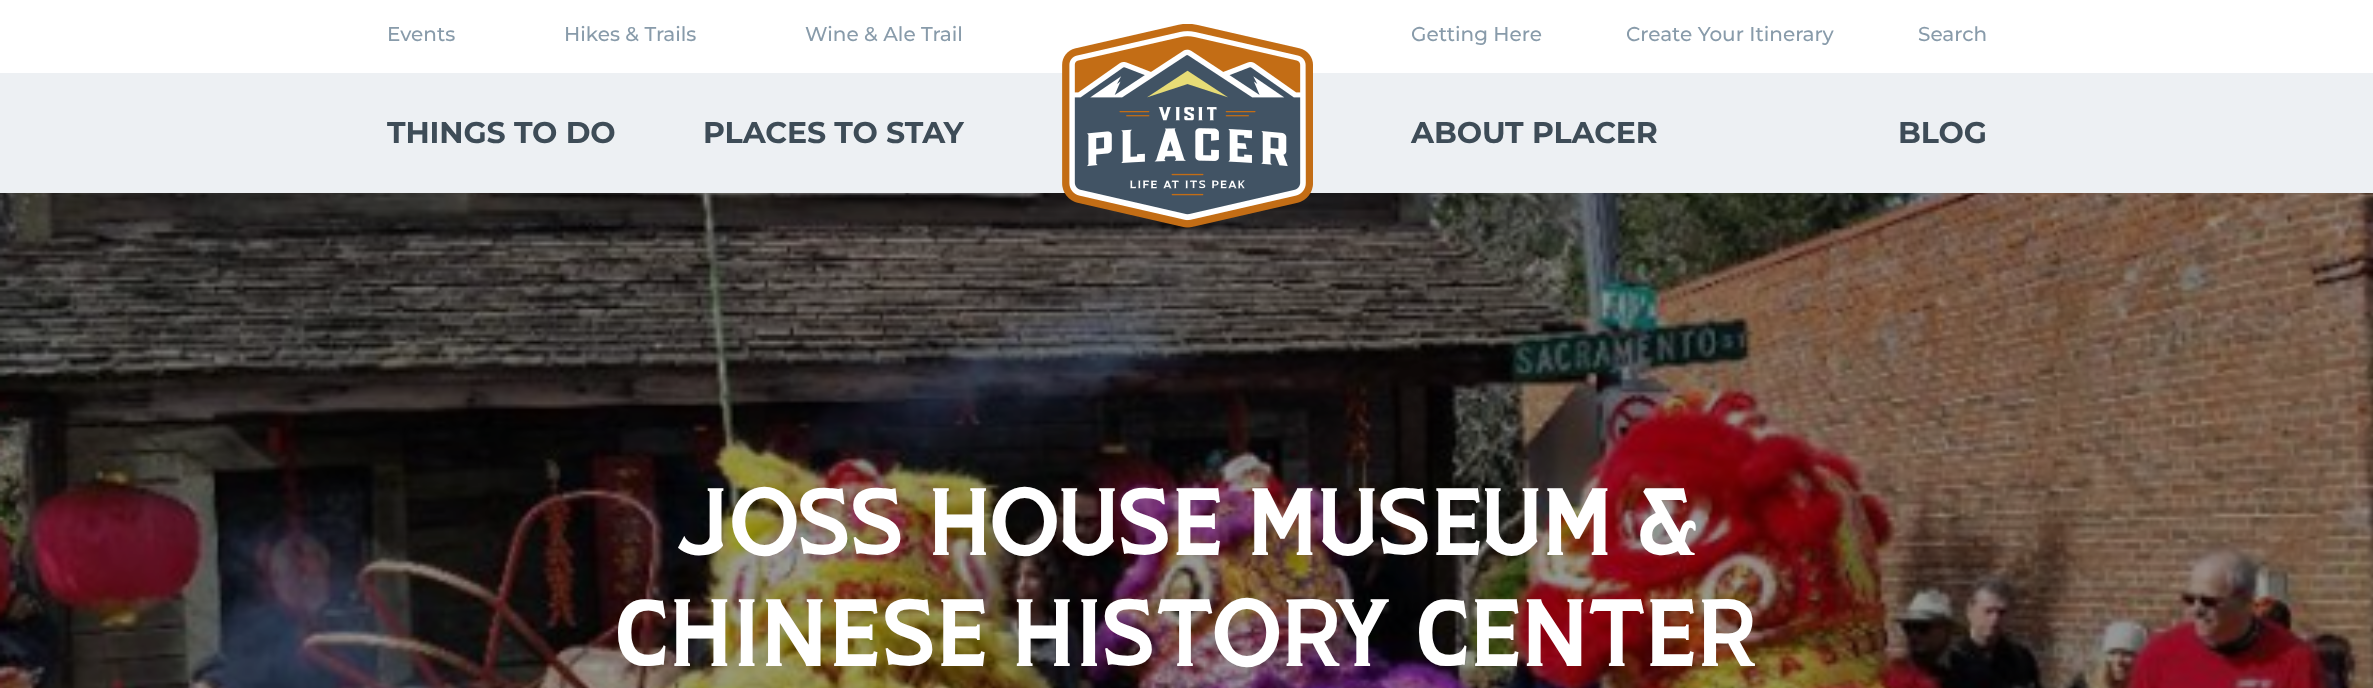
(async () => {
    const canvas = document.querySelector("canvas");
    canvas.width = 2373;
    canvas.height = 688;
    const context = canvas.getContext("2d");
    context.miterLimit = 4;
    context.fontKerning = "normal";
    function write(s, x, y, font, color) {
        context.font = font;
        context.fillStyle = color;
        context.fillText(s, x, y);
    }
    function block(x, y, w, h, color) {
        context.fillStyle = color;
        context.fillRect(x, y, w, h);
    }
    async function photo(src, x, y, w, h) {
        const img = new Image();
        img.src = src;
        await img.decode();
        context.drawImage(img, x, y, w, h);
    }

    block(0, 0, 2373, 688, "rgb(255, 255, 255)");
    block(0, 73, 2373, 120, "rgb(237, 240, 243)");
    await photo("media/2.png", 0, 193, 2373, 495);
    await photo("media/1.png", 1062, 24, 251, 204);
    write("Events", 387, 41, "500 20px Montserrat", "rgb(136, 155, 170)");
    write("Hikes & Trails", 564, 41, "500 20px Montserrat", "rgb(136, 155, 170)");
    write("Wine & Ale Trail", 805, 41, "500 20px Montserrat", "rgb(136, 155, 170)");
    write("Getting Here", 1411, 41, "500 20px Montserrat", "rgb(136, 155, 170)");
    write("Create Your Itinerary", 1626, 41, "500 20px Montserrat", "rgb(136, 155, 170)");
    write("Search", 1918, 41, "500 20px Montserrat", "rgb(136, 155, 170)");
    context.letterSpacing = "-0.1px";
    write("THINGS TO DO", 387, 143, "bold 30px Montserrat", "rgb(62, 76, 87)");
    write("PLACES TO STAY", 703, 143, "bold 30px Montserrat", "rgb(62, 76, 87)");
    write("ABOUT PLACER", 1411, 143, "bold 30px Montserrat", "rgb(62, 76, 87)");
    write("BLOG", 1898, 143, "bold 30px Montserrat", "rgb(62, 76, 87)");
    context.letterSpacing = "0px";
    write("JOSS HOUSE MUSEUM &", 675, 555, "120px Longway", "rgb(255, 255, 255)");
    write("CHINESE HISTORY CENTER", 615, 666, "120px Longway", "rgb(255, 255, 255)");
})();
